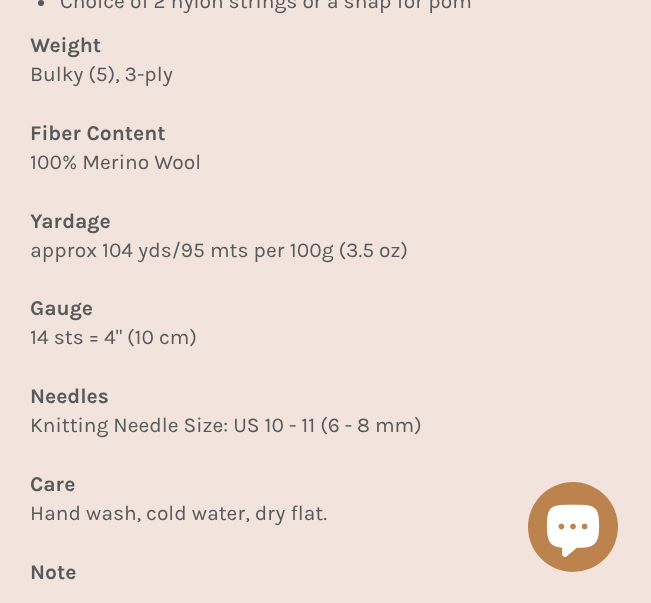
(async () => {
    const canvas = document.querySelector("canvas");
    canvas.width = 651;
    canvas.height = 603;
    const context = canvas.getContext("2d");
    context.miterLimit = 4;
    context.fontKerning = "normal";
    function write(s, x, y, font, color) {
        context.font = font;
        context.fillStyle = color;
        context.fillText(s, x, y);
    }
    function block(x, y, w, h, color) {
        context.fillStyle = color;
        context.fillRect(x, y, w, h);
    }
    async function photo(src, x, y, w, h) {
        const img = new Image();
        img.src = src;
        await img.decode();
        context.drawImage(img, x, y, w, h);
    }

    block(0, 0, 651, 603, "rgb(242, 228, 220)");
    context.fillStyle = "rgb(88, 89, 91)";
    context.beginPath();
    context.arc(41, 3, 3, 0, Math.PI * 2);
    context.fill();
    write("Choice of 2 nylon strings or a snap for pom", 60, 8, "21px Karla", "rgb(88, 89, 91)");
    write("Weight", 30, 52, "bold 21px Karla", "rgb(88, 89, 91)");
    write("Bulky (5), 3-ply", 30, 81, "21px Karla", "rgb(88, 89, 91)");
    write("Fiber Content", 30, 140, "bold 21px Karla", "rgb(88, 89, 91)");
    write("100% Merino Wool", 30, 169, "21px Karla", "rgb(88, 89, 91)");
    write("Yardage", 30, 228, "bold 21px Karla", "rgb(88, 89, 91)");
    write("approx 104 yds/95 mts per 100g (3.5 oz)", 30, 257, "21px Karla", "rgb(88, 89, 91)");
    write("Gauge", 30, 315, "bold 21px Karla", "rgb(88, 89, 91)");
    write("14 sts = 4\" (10 cm)", 30, 344, "21px Karla", "rgb(88, 89, 91)");
    write("Needles", 30, 403, "bold 21px Karla", "rgb(88, 89, 91)");
    write("Knitting Needle Size: US 10 - 11 (6 - 8 mm)", 30, 432, "21px Karla", "rgb(88, 89, 91)");
    write("Care", 30, 491, "bold 21px Karla", "rgb(88, 89, 91)");
    write("Hand wash, cold water, dry flat.", 30, 520, "21px Karla", "rgb(88, 89, 91)");
    write("Note", 30, 579, "bold 21px Karla", "rgb(88, 89, 91)");
    context.fillStyle = "rgb(188, 131, 78)";
    context.beginPath();
    context.arc(573, 527, 45, 0, Math.PI * 2);
    context.fill();
    await photo("media/1.png", 546, 504, 54, 53);
})();
